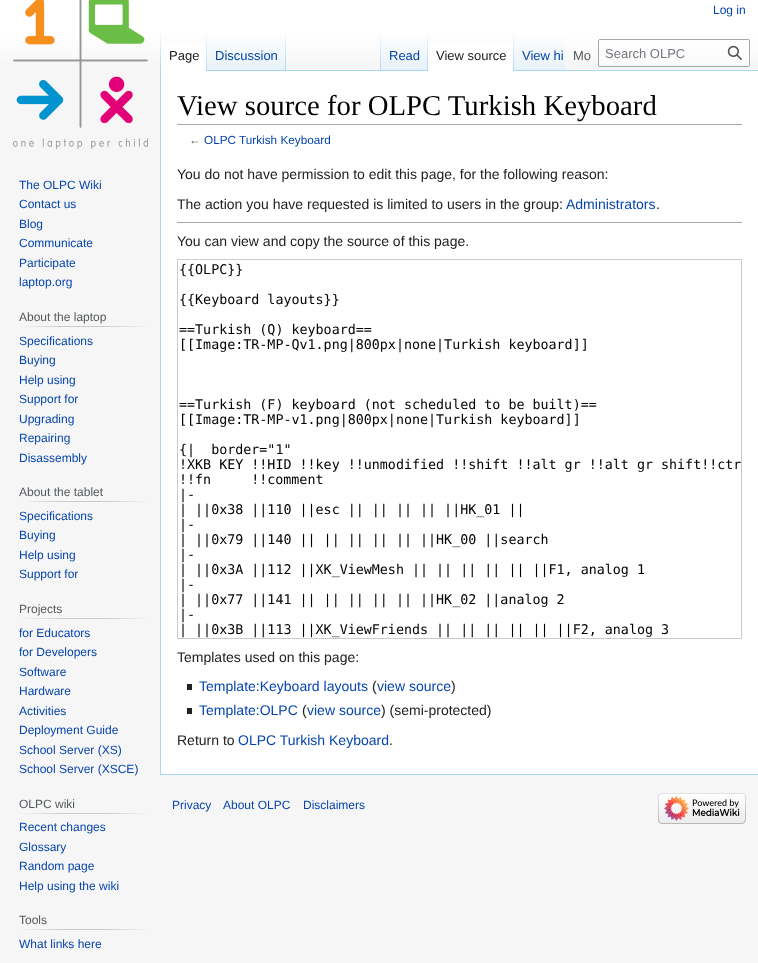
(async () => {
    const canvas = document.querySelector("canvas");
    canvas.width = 758;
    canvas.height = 963;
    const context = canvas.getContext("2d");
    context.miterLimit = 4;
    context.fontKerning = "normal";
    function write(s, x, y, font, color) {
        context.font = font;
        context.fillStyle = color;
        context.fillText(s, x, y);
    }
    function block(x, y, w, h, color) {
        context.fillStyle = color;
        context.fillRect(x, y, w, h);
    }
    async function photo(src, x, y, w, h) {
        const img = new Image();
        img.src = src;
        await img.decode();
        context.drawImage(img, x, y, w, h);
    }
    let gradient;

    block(0, 0, 758, 963, "rgb(246, 246, 246)");
    gradient = context.createLinearGradient(379, -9, 379, 71);
    gradient.addColorStop(0.5, "rgb(255, 255, 255)");
    gradient.addColorStop(1, "rgb(246, 246, 246)");
    context.fillStyle = gradient;
    context.fillRect(0, 0, 758, 60);
    write("Log in", 713, 14, "12px Liberation Sans", "rgb(6, 69, 173)");
    block(160, 774, 598, 1, "rgb(167, 215, 249)");
    block(160, 70, 1, 705, "rgb(167, 215, 249)");
    gradient = context.createLinearGradient(161, 31, 161, 71);
    gradient.addColorStop(0, "rgba(167, 215, 249, 0)");
    gradient.addColorStop(1, "rgb(167, 215, 249)");
    context.fillStyle = gradient;
    context.fillRect(160, 31, 1, 40);
    block(161, 42, 45, 29, "rgb(255, 255, 255)");
    gradient = context.createLinearGradient(207, 31, 207, 71);
    gradient.addColorStop(0, "rgb(255, 255, 255)");
    gradient.addColorStop(1, "rgb(167, 215, 249)");
    context.fillStyle = gradient;
    context.fillRect(206, 31, 1, 40);
    write("Page", 169, 60, "13px Liberation Sans", "rgb(32, 33, 34)");
    gradient = context.createLinearGradient(247, 71, 247, 31);
    gradient.addColorStop(0, "rgb(119, 193, 246)");
    gradient.addColorStop(0.03, "rgb(232, 242, 248)");
    gradient.addColorStop(1, "rgb(255, 255, 255)");
    context.fillStyle = gradient;
    context.fillRect(207, 37, 79, 34);
    gradient = context.createLinearGradient(286, 31, 286, 71);
    gradient.addColorStop(0, "rgba(167, 215, 249, 0)");
    gradient.addColorStop(1, "rgb(167, 215, 249)");
    context.fillStyle = gradient;
    context.fillRect(285, 31, 1, 40);
    write("Discussion", 215, 60, "13px Liberation Sans", "rgb(6, 69, 173)");
    block(286, 70, 472, 1, "rgb(167, 215, 249)");
    gradient = context.createLinearGradient(381, 31, 381, 71);
    gradient.addColorStop(0, "rgba(167, 215, 249, 0)");
    gradient.addColorStop(1, "rgb(167, 215, 249)");
    context.fillStyle = gradient;
    context.fillRect(380, 31, 1, 40);
    gradient = context.createLinearGradient(405, 71, 405, 31);
    gradient.addColorStop(0, "rgb(119, 193, 246)");
    gradient.addColorStop(0.03, "rgb(232, 242, 248)");
    gradient.addColorStop(1, "rgb(255, 255, 255)");
    context.fillStyle = gradient;
    context.fillRect(381, 37, 47, 33);
    gradient = context.createLinearGradient(428, 31, 428, 71);
    gradient.addColorStop(0, "rgba(167, 215, 249, 0)");
    gradient.addColorStop(1, "rgb(167, 215, 249)");
    context.fillStyle = gradient;
    context.fillRect(427, 31, 1, 40);
    write("Read", 389, 60, "13px Liberation Sans", "rgb(6, 69, 173)");
    block(428, 42, 85, 29, "rgb(255, 255, 255)");
    gradient = context.createLinearGradient(514, 31, 514, 71);
    gradient.addColorStop(0, "rgb(255, 255, 255)");
    gradient.addColorStop(1, "rgb(167, 215, 249)");
    context.fillStyle = gradient;
    context.fillRect(513, 31, 1, 40);
    write("View source", 436, 60, "13px Liberation Sans", "rgb(32, 33, 34)");
    gradient = context.createLinearGradient(540, 71, 540, 31);
    gradient.addColorStop(0, "rgb(119, 193, 246)");
    gradient.addColorStop(0.03, "rgb(232, 242, 248)");
    gradient.addColorStop(1, "rgb(255, 255, 255)");
    context.fillStyle = gradient;
    context.fillRect(514, 37, 51, 33);
    write("View hi", 522, 60, "13px Liberation Sans", "rgb(6, 69, 173)");
    write("Mo", 573, 60, "13px Liberation Sans", "rgb(84, 89, 93)");
    context.fillStyle = "rgba(255, 255, 255, 0.5)";
    context.beginPath();
    context.roundRect(598.5, 39.5, 151, 27, 1.5);
    context.fill();
    context.strokeStyle = "rgb(162, 169, 177)";
    context.stroke();
    write("Search OLPC", 605, 58, "13px Liberation Sans", "rgb(114, 119, 125)");
    await photo("media/1.png", 727, 45, 15, 15);
    await photo("media/2.png", 13, 0, 135, 149);
    write("The OLPC Wiki", 19, 189, "12px Liberation Sans", "rgb(6, 69, 173)");
    write("Contact us", 19, 208, "12px Liberation Sans", "rgb(6, 69, 173)");
    write("Blog", 19, 228, "12px Liberation Sans", "rgb(6, 69, 173)");
    write("Communicate", 19, 247, "12px Liberation Sans", "rgb(6, 69, 173)");
    write("Participate", 19, 267, "12px Liberation Sans", "rgb(6, 69, 173)");
    write("laptop.org", 19, 286, "12px Liberation Sans", "rgb(6, 69, 173)");
    gradient = context.createLinearGradient(19, 327, 150, 327);
    gradient.addColorStop(0, "rgb(246, 246, 246)");
    gradient.addColorStop(0.33, "rgb(200, 204, 209)");
    gradient.addColorStop(0.66, "rgb(200, 204, 209)");
    gradient.addColorStop(1, "rgb(246, 246, 246)");
    context.fillStyle = gradient;
    context.fillRect(19, 326, 131, 1);
    write("About the laptop", 19, 321, "12px Liberation Sans", "rgb(84, 89, 93)");
    write("Specifications", 19, 345, "12px Liberation Sans", "rgb(6, 69, 173)");
    write("Buying", 19, 364, "12px Liberation Sans", "rgb(6, 69, 173)");
    write("Help using", 19, 384, "12px Liberation Sans", "rgb(6, 69, 173)");
    write("Support for", 19, 403, "12px Liberation Sans", "rgb(6, 69, 173)");
    write("Upgrading", 19, 423, "12px Liberation Sans", "rgb(6, 69, 173)");
    write("Repairing", 19, 442, "12px Liberation Sans", "rgb(6, 69, 173)");
    write("Disassembly", 19, 462, "12px Liberation Sans", "rgb(6, 69, 173)");
    gradient = context.createLinearGradient(19, 502, 150, 502);
    gradient.addColorStop(0, "rgb(246, 246, 246)");
    gradient.addColorStop(0.33, "rgb(200, 204, 209)");
    gradient.addColorStop(0.66, "rgb(200, 204, 209)");
    gradient.addColorStop(1, "rgb(246, 246, 246)");
    context.fillStyle = gradient;
    context.fillRect(19, 501, 131, 1);
    write("About the tablet", 19, 496, "12px Liberation Sans", "rgb(84, 89, 93)");
    write("Specifications", 19, 520, "12px Liberation Sans", "rgb(6, 69, 173)");
    write("Buying", 19, 539, "12px Liberation Sans", "rgb(6, 69, 173)");
    write("Help using", 19, 559, "12px Liberation Sans", "rgb(6, 69, 173)");
    write("Support for", 19, 578, "12px Liberation Sans", "rgb(6, 69, 173)");
    gradient = context.createLinearGradient(19, 619, 150, 619);
    gradient.addColorStop(0, "rgb(246, 246, 246)");
    gradient.addColorStop(0.33, "rgb(200, 204, 209)");
    gradient.addColorStop(0.66, "rgb(200, 204, 209)");
    gradient.addColorStop(1, "rgb(246, 246, 246)");
    context.fillStyle = gradient;
    context.fillRect(19, 618, 131, 1);
    write("Projects", 19, 613, "12px Liberation Sans", "rgb(84, 89, 93)");
    write("for Educators", 19, 637, "12px Liberation Sans", "rgb(6, 69, 173)");
    write("for Developers", 19, 656, "12px Liberation Sans", "rgb(6, 69, 173)");
    write("Software", 19, 676, "12px Liberation Sans", "rgb(6, 69, 173)");
    write("Hardware", 19, 695, "12px Liberation Sans", "rgb(6, 69, 173)");
    write("Activities", 19, 715, "12px Liberation Sans", "rgb(6, 69, 173)");
    write("Deployment Guide", 19, 734, "12px Liberation Sans", "rgb(6, 69, 173)");
    write("School Server (XS)", 19, 754, "12px Liberation Sans", "rgb(6, 69, 173)");
    write("School Server (XSCE)", 19, 773, "12px Liberation Sans", "rgb(6, 69, 173)");
    gradient = context.createLinearGradient(19, 814, 150, 814);
    gradient.addColorStop(0, "rgb(246, 246, 246)");
    gradient.addColorStop(0.33, "rgb(200, 204, 209)");
    gradient.addColorStop(0.66, "rgb(200, 204, 209)");
    gradient.addColorStop(1, "rgb(246, 246, 246)");
    context.fillStyle = gradient;
    context.fillRect(19, 813, 131, 1);
    write("OLPC wiki", 19, 808, "12px Liberation Sans", "rgb(84, 89, 93)");
    write("Recent changes", 19, 831, "12px Liberation Sans", "rgb(6, 69, 173)");
    write("Glossary", 19, 851, "12px Liberation Sans", "rgb(6, 69, 173)");
    write("Random page", 19, 870, "12px Liberation Sans", "rgb(6, 69, 173)");
    write("Help using the wiki", 19, 890, "12px Liberation Sans", "rgb(6, 69, 173)");
    gradient = context.createLinearGradient(19, 930, 150, 930);
    gradient.addColorStop(0, "rgb(246, 246, 246)");
    gradient.addColorStop(0.33, "rgb(200, 204, 209)");
    gradient.addColorStop(0.66, "rgb(200, 204, 209)");
    gradient.addColorStop(1, "rgb(246, 246, 246)");
    context.fillStyle = gradient;
    context.fillRect(19, 929, 131, 1);
    write("Tools", 19, 924, "12px Liberation Sans", "rgb(84, 89, 93)");
    write("What links here", 19, 948, "12px Liberation Sans", "rgb(6, 69, 173)");
    block(161, 71, 597, 703, "rgb(255, 255, 255)");
    block(177, 124, 565, 1, "rgb(162, 169, 177)");
    write("View source for OLPC Turkish Keyboard", 177, 115, "28.75px Liberation Serif", "rgb(0, 0, 0)");
    write("←", 189, 144, "11.75px Liberation Sans", "rgb(84, 89, 93)");
    write("OLPC Turkish Keyboard", 204, 144, "11.75px Liberation Sans", "rgb(6, 69, 173)");
    write("You do not have permission to edit this page, for the following reason:", 177, 179, "14px Liberation Sans", "rgb(32, 33, 34)");
    write("The action you have requested is limited to users in the group:", 177, 209, "14px Liberation Sans", "rgb(32, 33, 34)");
    write("Administrators", 566, 209, "14px Liberation Sans", "rgb(6, 69, 173)");
    write(".", 656, 209, "14px Liberation Sans", "rgb(32, 33, 34)");
    block(177, 222, 565, 1, "rgb(162, 169, 177)");
    write("You can view and copy the source of this page.", 177, 246, "14px Liberation Sans", "rgb(32, 33, 34)");
    context.strokeStyle = "rgb(200, 204, 209)";
    context.strokeRect(177.5, 259.5, 564, 379);
    write("{{OLPC}}", 179, 274, "13.35px DejaVu Sans Mono", "rgb(0, 0, 0)");
    write("{{Keyboard layouts}}", 179, 304, "13.35px DejaVu Sans Mono", "rgb(0, 0, 0)");
    write("==Turkish (Q) keyboard==", 179, 334, "13.35px DejaVu Sans Mono", "rgb(0, 0, 0)");
    write("[[Image:TR-MP-Qv1.png|800px|none|Turkish keyboard]]", 179, 349, "13.35px DejaVu Sans Mono", "rgb(0, 0, 0)");
    write("==Turkish (F) keyboard (not scheduled to be built)==", 179, 409, "13.35px DejaVu Sans Mono", "rgb(0, 0, 0)");
    write("[[Image:TR-MP-v1.png|800px|none|Turkish keyboard]]", 179, 424, "13.35px DejaVu Sans Mono", "rgb(0, 0, 0)");
    write("{|  border=\"1\"", 179, 454, "13.35px DejaVu Sans Mono", "rgb(0, 0, 0)");
    write("!XKB KEY !!HID !!key !!unmodified !!shift !!alt gr !!alt gr shift!!ctr", 179, 469, "13.35px DejaVu Sans Mono", "rgb(0, 0, 0)");
    context.wordSpacing = "32px";
    write("!!fn !!comment", 179, 484, "13.35px DejaVu Sans Mono", "rgb(0, 0, 0)");
    context.wordSpacing = "0px";
    write("|-", 179, 499, "13.35px DejaVu Sans Mono", "rgb(0, 0, 0)");
    write("| ||0x38 ||110 ||esc || || || || ||HK_01 ||", 179, 514, "13.35px DejaVu Sans Mono", "rgb(0, 0, 0)");
    write("|-", 179, 529, "13.35px DejaVu Sans Mono", "rgb(0, 0, 0)");
    write("| ||0x79 ||140 || || || || || ||HK_00 ||search", 179, 544, "13.35px DejaVu Sans Mono", "rgb(0, 0, 0)");
    write("|-", 179, 559, "13.35px DejaVu Sans Mono", "rgb(0, 0, 0)");
    write("| ||0x3A ||112 ||XK_ViewMesh || || || || || ||F1, analog 1", 179, 574, "13.35px DejaVu Sans Mono", "rgb(0, 0, 0)");
    write("|-", 179, 589, "13.35px DejaVu Sans Mono", "rgb(0, 0, 0)");
    write("| ||0x77 ||141 || || || || || ||HK_02 ||analog 2", 179, 604, "13.35px DejaVu Sans Mono", "rgb(0, 0, 0)");
    write("|-", 179, 619, "13.35px DejaVu Sans Mono", "rgb(0, 0, 0)");
    write("| ||0x3B ||113 ||XK_ViewFriends || || || || || ||F2, analog 3", 179, 634, "13.35px DejaVu Sans Mono", "rgb(0, 0, 0)");
    write("Templates used on this page:", 177, 662, "14px Liberation Sans", "rgb(32, 33, 34)");
    block(187, 684, 5, 6, "rgb(32, 33, 34)");
    write("Template:Keyboard layouts", 199, 691, "14px Liberation Sans", "rgb(6, 69, 173)");
    write("(", 372, 691, "14px Liberation Sans", "rgb(32, 33, 34)");
    write("view source", 377, 691, "14px Liberation Sans", "rgb(6, 69, 173)");
    write(")", 451, 691, "14px Liberation Sans", "rgb(32, 33, 34)");
    block(187, 708, 5, 6, "rgb(32, 33, 34)");
    write("Template:OLPC", 199, 715, "14px Liberation Sans", "rgb(6, 69, 173)");
    write("(", 302, 715, "14px Liberation Sans", "rgb(32, 33, 34)");
    write("view source", 307, 715, "14px Liberation Sans", "rgb(6, 69, 173)");
    write(") (semi-protected)", 381, 715, "14px Liberation Sans", "rgb(32, 33, 34)");
    write("Return to", 177, 745, "14px Liberation Sans", "rgb(32, 33, 34)");
    write("OLPC Turkish Keyboard", 238, 745, "14px Liberation Sans", "rgb(6, 69, 173)");
    write(".", 389, 745, "14px Liberation Sans", "rgb(32, 33, 34)");
    write("Privacy", 172, 809, "12px Liberation Sans", "rgb(6, 69, 173)");
    write("About OLPC", 223, 809, "12px Liberation Sans", "rgb(6, 69, 173)");
    write("Disclaimers", 303, 809, "12px Liberation Sans", "rgb(6, 69, 173)");
    await photo("media/3.png", 658, 793, 88, 31);
})();
